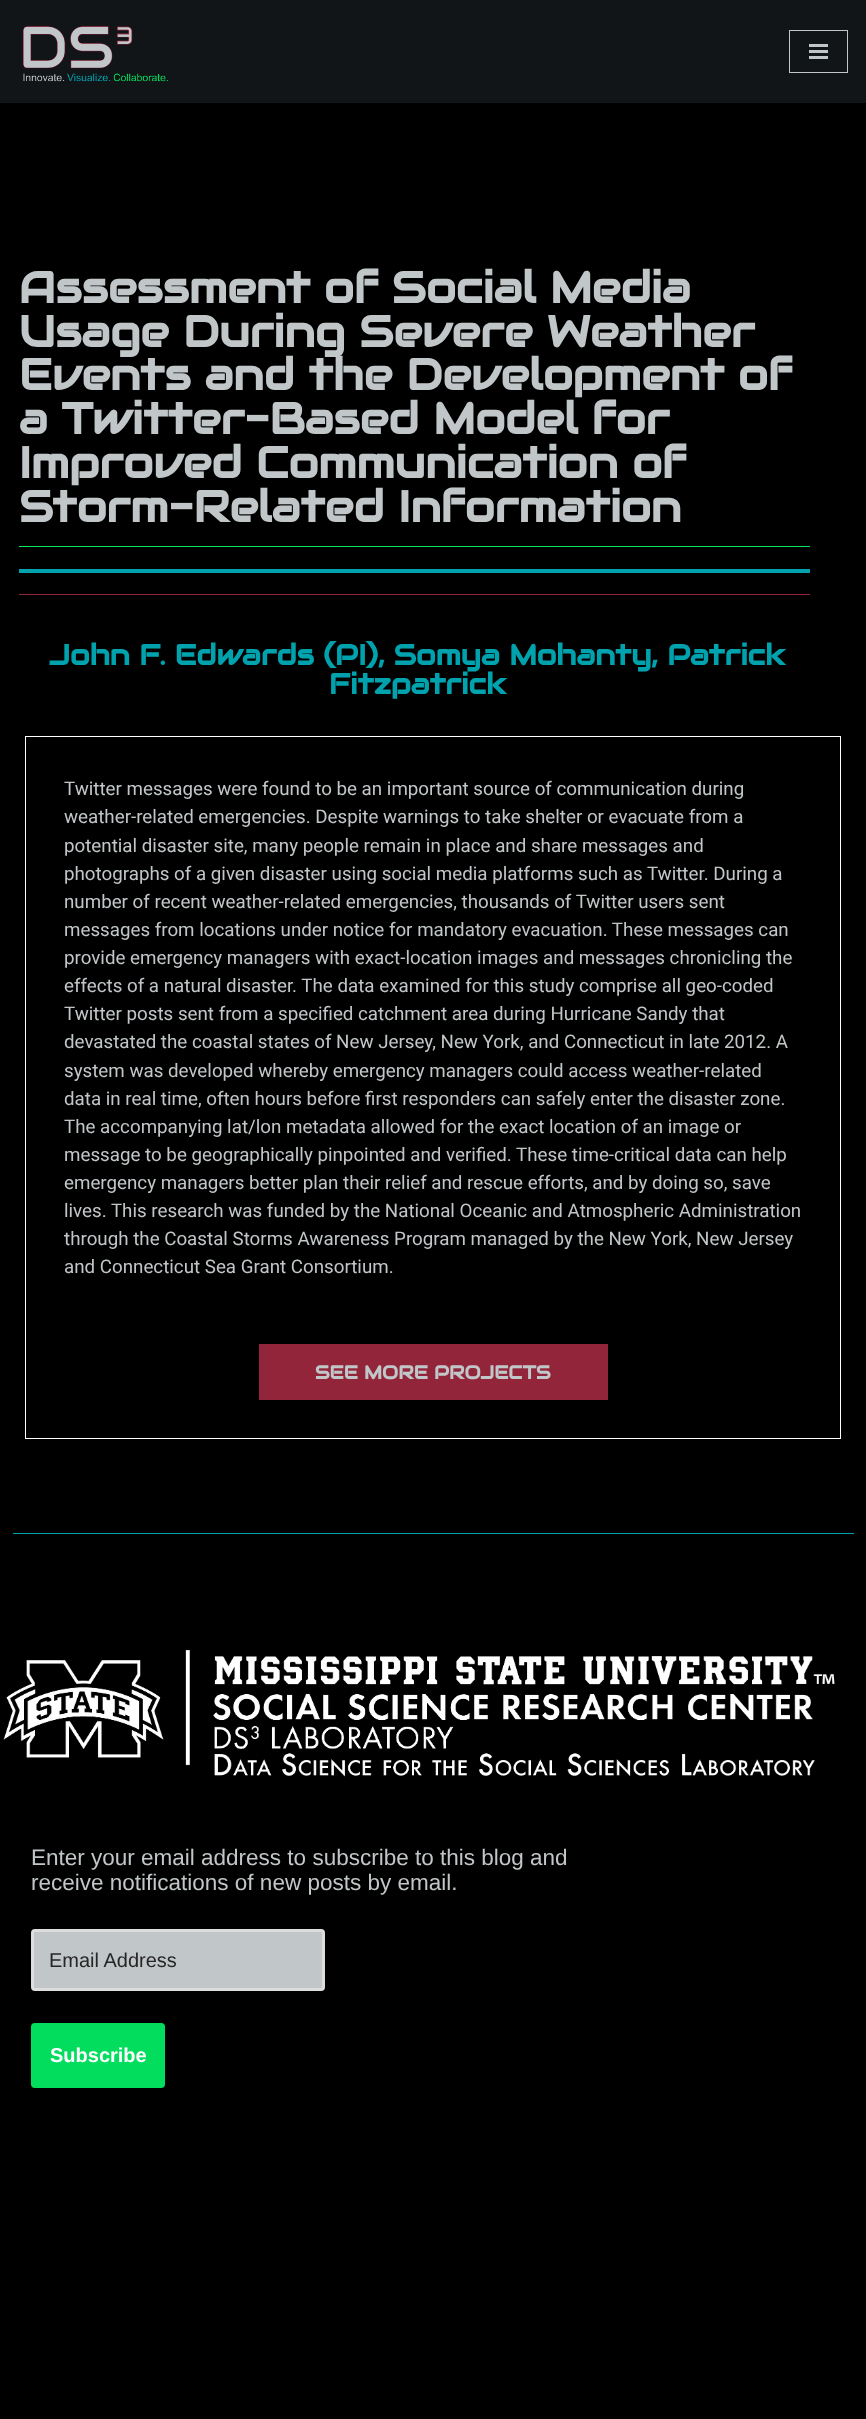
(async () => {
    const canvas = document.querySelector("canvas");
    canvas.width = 866;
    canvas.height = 2419;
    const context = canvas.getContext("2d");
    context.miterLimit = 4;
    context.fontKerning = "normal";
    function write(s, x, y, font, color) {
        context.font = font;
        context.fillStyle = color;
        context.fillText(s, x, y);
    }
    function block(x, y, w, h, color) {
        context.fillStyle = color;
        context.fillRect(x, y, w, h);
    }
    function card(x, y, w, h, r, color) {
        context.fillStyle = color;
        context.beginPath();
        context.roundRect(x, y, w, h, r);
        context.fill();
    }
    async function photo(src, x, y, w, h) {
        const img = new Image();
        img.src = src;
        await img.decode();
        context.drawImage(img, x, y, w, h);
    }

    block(0, 0, 866, 2419, "rgb(0, 0, 0)");
    block(0, 0, 866, 103, "rgb(17, 21, 24)");
    await photo("media/1.png", 22, 26, 146, 56);
    context.strokeStyle = "rgb(193, 198, 200)";
    context.strokeRect(789.5, 30.5, 58, 42);
    block(809, 44, 19, 3, "rgb(193, 198, 200)");
    block(809, 50, 19, 3, "rgb(193, 198, 200)");
    block(809, 56, 19, 3, "rgb(193, 198, 200)");
    write("Assessment of Social Media", 19, 303, "bold 43.75px Audiowide", "rgb(193, 198, 200)");
    write("Usage During Severe Weather", 19, 347, "bold 43.75px Audiowide", "rgb(193, 198, 200)");
    write("Events and the Development of", 19, 390, "bold 43.75px Audiowide", "rgb(193, 198, 200)");
    write("a Twitter-Based Model for", 19, 434, "bold 43.75px Audiowide", "rgb(193, 198, 200)");
    write("Improved Communication of", 19, 478, "bold 43.75px Audiowide", "rgb(193, 198, 200)");
    write("Storm-Related Information", 19, 522, "bold 43.75px Audiowide", "rgb(193, 198, 200)");
    block(19, 546, 791, 1, "rgb(4, 231, 98)");
    block(19, 569, 791, 4, "rgb(0, 163, 173)");
    block(19, 594, 791, 1, "rgb(147, 37, 59)");
    write("John F. Edwards (PI), Somya Mohanty, Patrick", 49, 665, "bold 28.75px Audiowide", "rgb(0, 163, 173)");
    write("Fitzpatrick", 329, 694, "bold 28.75px Audiowide", "rgb(0, 163, 173)");
    context.strokeStyle = "rgb(255, 255, 255)";
    context.strokeRect(25.5, 736.5, 815, 702);
    write("Twitter messages were found to be an important source of communication during", 64, 795, "18.75px Roboto", "rgb(193, 198, 200)");
    write("weather-related emergencies. Despite warnings to take shelter or evacuate from a", 64, 823, "18.75px Roboto", "rgb(193, 198, 200)");
    write("potential disaster site, many people remain in place and share messages and", 64, 852, "18.75px Roboto", "rgb(193, 198, 200)");
    write("photographs of a given disaster using social media platforms such as Twitter. During a", 64, 880, "18.75px Roboto", "rgb(193, 198, 200)");
    write("number of recent weather-related emergencies, thousands of Twitter users sent", 64, 908, "18.75px Roboto", "rgb(193, 198, 200)");
    write("messages from locations under notice for mandatory evacuation. These messages can", 64, 936, "18.75px Roboto", "rgb(193, 198, 200)");
    write("provide emergency managers with exact-location images and messages chronicling the", 64, 964, "18.75px Roboto", "rgb(193, 198, 200)");
    write("effects of a natural disaster. The data examined for this study comprise all geo-coded", 64, 992, "18.75px Roboto", "rgb(193, 198, 200)");
    write("Twitter posts sent from a specified catchment area during Hurricane Sandy that", 64, 1020, "18.75px Roboto", "rgb(193, 198, 200)");
    write("devastated the coastal states of New Jersey, New York, and Connecticut in late 2012. A", 64, 1048, "18.75px Roboto", "rgb(193, 198, 200)");
    write("system was developed whereby emergency managers could access weather-related", 64, 1077, "18.75px Roboto", "rgb(193, 198, 200)");
    write("data in real time, often hours before first responders can safely enter the disaster zone.", 64, 1105, "18.75px Roboto", "rgb(193, 198, 200)");
    write("The accompanying lat/lon metadata allowed for the exact location of an image or", 64, 1133, "18.75px Roboto", "rgb(193, 198, 200)");
    write("message to be geographically pinpointed and verified. These time-critical data can help", 64, 1161, "18.75px Roboto", "rgb(193, 198, 200)");
    write("emergency managers better plan their relief and rescue efforts, and by doing so, save", 64, 1189, "18.75px Roboto", "rgb(193, 198, 200)");
    write("lives. This research was funded by the National Oceanic and Atmospheric Administration", 64, 1217, "18.75px Roboto", "rgb(193, 198, 200)");
    write("through the Coastal Storms Awareness Program managed by the New York, New Jersey", 64, 1245, "18.75px Roboto", "rgb(193, 198, 200)");
    write("and Connecticut Sea Grant Consortium.", 64, 1273, "18.75px Roboto", "rgb(193, 198, 200)");
    block(259, 1344, 349, 56, "rgb(147, 37, 59)");
    write("SEE MORE PROJECTS", 315, 1379, "bold 18.75px Audiowide", "rgb(193, 198, 200)");
    block(13, 1533, 841, 1, "rgb(0, 163, 173)");
    await photo("media/2.png", 3, 1650, 832, 127);
    write("Enter your email address to subscribe to this blog and", 31, 1865, "22.5px Liberation Sans", "rgb(193, 198, 200)");
    write("receive notifications of new posts by email.", 31, 1890, "22.5px Liberation Sans", "rgb(193, 198, 200)");
    context.beginPath();
    context.roundRect(32.5, 1930.5, 291, 59, 2.5);
    context.fill();
    context.strokeStyle = "rgb(221, 221, 221)";
    context.lineWidth = 3;
    context.stroke();
    write("Email Address", 49, 1967, "20px Liberation Sans", "rgb(39, 38, 38)");
    card(31, 2023, 134, 65, 4, "rgb(3, 221, 94)");
    write("Subscribe", 50, 2062, "bold 20px Liberation Sans", "rgb(255, 255, 255)");
})();
